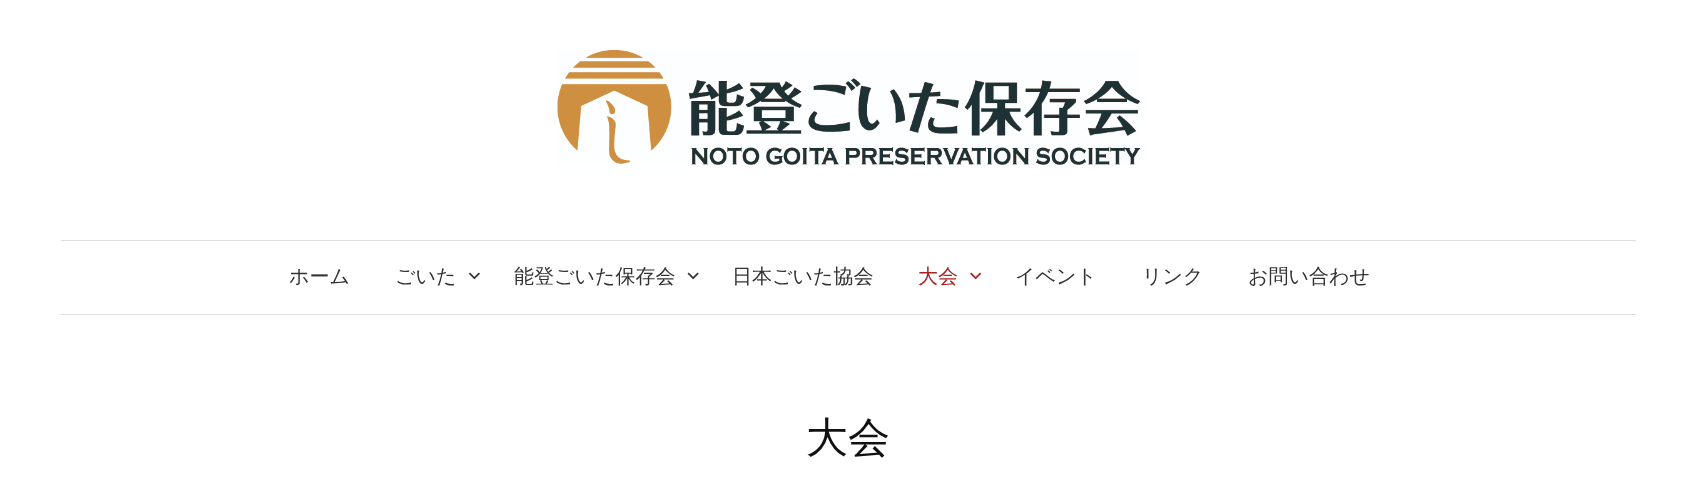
(async () => {
    const canvas = document.querySelector("canvas");
    canvas.width = 1696;
    canvas.height = 485;
    const context = canvas.getContext("2d");
    context.miterLimit = 4;
    context.fontKerning = "normal";
    function write(s, x, y, font, color) {
        context.font = font;
        context.fillStyle = color;
        context.fillText(s, x, y);
    }
    function block(x, y, w, h, color) {
        context.fillStyle = color;
        context.fillRect(x, y, w, h);
    }
    async function photo(src, x, y, w, h) {
        const img = new Image();
        img.src = src;
        await img.decode();
        context.drawImage(img, x, y, w, h);
    }

    block(0, 0, 1696, 485, "rgb(255, 255, 255)");
    await photo("media/1.png", 557, 50, 583, 115);
    block(61, 240, 1575, 1, "rgb(221, 221, 221)");
    block(61, 314, 1575, 1, "rgb(221, 221, 221)");
    write("ホーム", 289, 283, "500 20px WenQuanYi Zen Hei", "rgb(51, 51, 51)");
    write("ごいた", 395, 283, "500 20px WenQuanYi Zen Hei", "rgb(51, 51, 51)");
    await photo("media/2.png", 468, 272, 12, 8);
    write("能登ごいた保存会", 514, 283, "500 20px WenQuanYi Zen Hei", "rgb(51, 51, 51)");
    await photo("media/3.png", 687, 272, 12, 8);
    write("日本ごいた協会", 732, 283, "500 20px WenQuanYi Zen Hei", "rgb(51, 51, 51)");
    write("大会", 918, 283, "500 20px WenQuanYi Zen Hei", "rgb(166, 36, 37)");
    await photo("media/4.png", 970, 272, 12, 8);
    write("イベント", 1015, 283, "500 20px WenQuanYi Zen Hei", "rgb(51, 51, 51)");
    write("リンク", 1142, 283, "500 20px WenQuanYi Zen Hei", "rgb(51, 51, 51)");
    write("お問い合わせ", 1248, 283, "500 20px WenQuanYi Zen Hei", "rgb(51, 51, 51)");
    write("大会", 806, 452, "500 42px WenQuanYi Zen Hei", "rgb(17, 17, 17)");
})();
